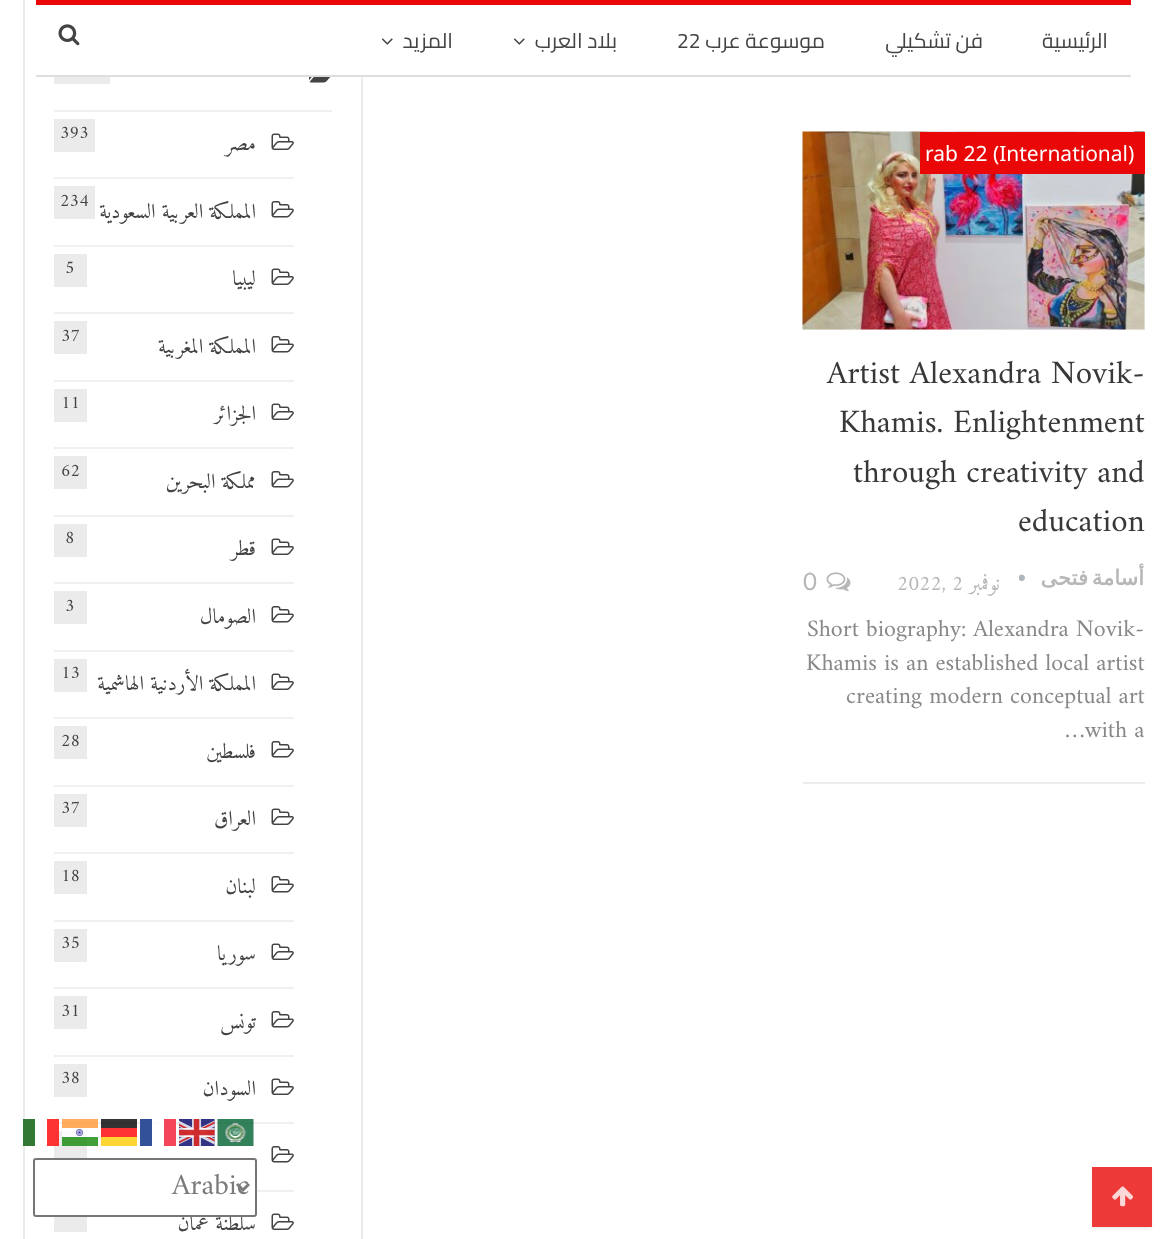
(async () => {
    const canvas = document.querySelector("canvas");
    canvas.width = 1167;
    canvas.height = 1239;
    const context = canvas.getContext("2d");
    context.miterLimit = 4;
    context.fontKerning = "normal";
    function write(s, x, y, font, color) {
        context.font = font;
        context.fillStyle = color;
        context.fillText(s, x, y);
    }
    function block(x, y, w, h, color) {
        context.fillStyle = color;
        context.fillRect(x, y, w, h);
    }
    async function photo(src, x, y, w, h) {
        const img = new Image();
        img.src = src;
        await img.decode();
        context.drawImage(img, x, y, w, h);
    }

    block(0, 0, 1167, 1239, "rgb(255, 255, 255)");
    block(101, 1119, 36, 9, "rgb(51, 51, 51)");
    block(164, 1119, 12, 27, "rgb(245, 70, 89)");
    block(140, 1119, 12, 27, "rgb(51, 81, 153)");
    context.strokeStyle = "rgb(235, 235, 235)";
    context.lineWidth = 2;
    context.strokeRect(24, -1, 338, 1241);
    block(361, 5, 2, 70, "rgb(255, 255, 255)");
    block(36, 0, 1095, 5, "rgb(234, 7, 7)");
    block(36, 75, 1095, 2, "rgb(222, 222, 222)");
    await photo("media/1.png", 58, 24, 22, 22);
    await photo("media/2.png", 381, 38, 12, 7);
    context.direction = "rtl";
    write("المزيد", 453, 48, "21px Cairo", "rgb(68, 68, 68)");
    await photo("media/2.png", 513, 38, 12, 7);
    write("بلاد العرب", 617, 48, "21px Cairo", "rgb(68, 68, 68)");
    context.direction = "ltr";
    write("22", 677, 48, "21px Cairo", "rgb(68, 68, 68)");
    context.direction = "rtl";
    write("موسوعة عرب", 825, 48, "21px Cairo", "rgb(68, 68, 68)");
    write("فن تشكيلي", 983, 48, "21px Cairo", "rgb(68, 68, 68)");
    write("الرئيسية", 1108, 48, "21px Cairo", "rgb(68, 68, 68)");
    block(54, 77, 56, 7, "rgb(235, 235, 235)");
    await photo("media/3.png", 309, 77, 22, 6);
    block(54, 110, 278, 2, "rgb(240, 240, 240)");
    block(54, 177, 240, 2, "rgb(240, 240, 240)");
    block(54, 119, 41, 33, "rgb(235, 235, 235)");
    context.direction = "ltr";
    write("393", 60, 138, "18px Amiri", "rgb(68, 68, 68)");
    context.direction = "rtl";
    write("مصر", 256, 150, "21px Amiri", "rgb(68, 68, 68)");
    await photo("media/4.png", 271, 133, 23, 17);
    block(54, 245, 240, 2, "rgb(240, 240, 240)");
    block(54, 186, 41, 33, "rgb(235, 235, 235)");
    context.direction = "ltr";
    write("234", 60, 206, "18px Amiri", "rgb(68, 68, 68)");
    context.direction = "rtl";
    write("المملكة العربية السعودية", 256, 218, "21px Amiri", "rgb(68, 68, 68)");
    await photo("media/5.png", 271, 201, 23, 17);
    block(54, 312, 240, 2, "rgb(240, 240, 240)");
    block(54, 254, 33, 33, "rgb(235, 235, 235)");
    context.direction = "ltr";
    write("5", 65, 273, "18px Amiri", "rgb(68, 68, 68)");
    context.direction = "rtl";
    write("ليبيا", 256, 285, "21px Amiri", "rgb(68, 68, 68)");
    await photo("media/4.png", 271, 268, 23, 17);
    block(54, 380, 240, 2, "rgb(240, 240, 240)");
    block(54, 321, 33, 33, "rgb(235, 235, 235)");
    context.direction = "ltr";
    write("37", 61, 341, "18px Amiri", "rgb(68, 68, 68)");
    context.direction = "rtl";
    write("المملكة المغربية", 256, 353, "21px Amiri", "rgb(68, 68, 68)");
    await photo("media/5.png", 271, 336, 23, 17);
    block(54, 447, 240, 2, "rgb(240, 240, 240)");
    block(54, 389, 33, 33, "rgb(235, 235, 235)");
    context.direction = "ltr";
    write("11", 61, 408, "18px Amiri", "rgb(68, 68, 68)");
    context.direction = "rtl";
    write("الجزائر", 256, 420, "21px Amiri", "rgb(68, 68, 68)");
    await photo("media/4.png", 271, 403, 23, 17);
    block(54, 515, 240, 2, "rgb(240, 240, 240)");
    block(54, 456, 33, 33, "rgb(235, 235, 235)");
    context.direction = "ltr";
    write("62", 61, 476, "18px Amiri", "rgb(68, 68, 68)");
    context.direction = "rtl";
    write("مملكة البحرين", 256, 488, "21px Amiri", "rgb(68, 68, 68)");
    await photo("media/5.png", 271, 471, 23, 17);
    block(54, 582, 240, 2, "rgb(240, 240, 240)");
    block(54, 524, 33, 33, "rgb(235, 235, 235)");
    context.direction = "ltr";
    write("8", 65, 543, "18px Amiri", "rgb(68, 68, 68)");
    context.direction = "rtl";
    write("قطر", 256, 555, "21px Amiri", "rgb(68, 68, 68)");
    await photo("media/4.png", 271, 538, 23, 17);
    block(54, 650, 240, 2, "rgb(240, 240, 240)");
    block(54, 591, 33, 33, "rgb(235, 235, 235)");
    context.direction = "ltr";
    write("3", 65, 611, "18px Amiri", "rgb(68, 68, 68)");
    context.direction = "rtl";
    write("الصومال", 256, 623, "21px Amiri", "rgb(68, 68, 68)");
    await photo("media/5.png", 271, 606, 23, 17);
    block(54, 717, 240, 2, "rgb(240, 240, 240)");
    block(54, 659, 33, 33, "rgb(235, 235, 235)");
    context.direction = "ltr";
    write("13", 61, 678, "18px Amiri", "rgb(68, 68, 68)");
    context.direction = "rtl";
    write("المملكة الأردنية الهاشمية", 256, 690, "21px Amiri", "rgb(68, 68, 68)");
    await photo("media/4.png", 271, 673, 23, 17);
    block(54, 785, 240, 2, "rgb(240, 240, 240)");
    block(54, 726, 33, 33, "rgb(235, 235, 235)");
    context.direction = "ltr";
    write("28", 61, 746, "18px Amiri", "rgb(68, 68, 68)");
    context.direction = "rtl";
    write("فلسطين", 256, 758, "21px Amiri", "rgb(68, 68, 68)");
    await photo("media/5.png", 271, 741, 23, 17);
    block(54, 852, 240, 2, "rgb(240, 240, 240)");
    block(54, 794, 33, 33, "rgb(235, 235, 235)");
    context.direction = "ltr";
    write("37", 61, 813, "18px Amiri", "rgb(68, 68, 68)");
    context.direction = "rtl";
    write("العراق", 256, 825, "21px Amiri", "rgb(68, 68, 68)");
    await photo("media/4.png", 271, 808, 23, 17);
    block(54, 920, 240, 2, "rgb(240, 240, 240)");
    block(54, 861, 33, 33, "rgb(235, 235, 235)");
    context.direction = "ltr";
    write("18", 61, 881, "18px Amiri", "rgb(68, 68, 68)");
    context.direction = "rtl";
    write("لبنان", 256, 893, "21px Amiri", "rgb(68, 68, 68)");
    await photo("media/5.png", 271, 876, 23, 17);
    block(54, 987, 240, 2, "rgb(240, 240, 240)");
    block(54, 929, 33, 33, "rgb(235, 235, 235)");
    context.direction = "ltr";
    write("35", 61, 948, "18px Amiri", "rgb(68, 68, 68)");
    context.direction = "rtl";
    write("سوريا", 256, 960, "21px Amiri", "rgb(68, 68, 68)");
    await photo("media/4.png", 271, 943, 23, 17);
    block(54, 1055, 240, 2, "rgb(240, 240, 240)");
    block(54, 996, 33, 33, "rgb(235, 235, 235)");
    context.direction = "ltr";
    write("31", 61, 1016, "18px Amiri", "rgb(68, 68, 68)");
    context.direction = "rtl";
    write("تونس", 256, 1028, "21px Amiri", "rgb(68, 68, 68)");
    await photo("media/5.png", 271, 1011, 23, 17);
    block(54, 1122, 240, 2, "rgb(240, 240, 240)");
    block(101, 1122, 36, 2, "rgb(48, 48, 48)");
    block(152, 1122, 12, 2, "rgb(252, 252, 252)");
    block(164, 1122, 12, 2, "rgb(245, 70, 89)");
    block(140, 1122, 12, 2, "rgb(50, 81, 152)");
    block(54, 1064, 33, 33, "rgb(235, 235, 235)");
    context.direction = "ltr";
    write("38", 61, 1083, "18px Amiri", "rgb(68, 68, 68)");
    context.direction = "rtl";
    write("السودان", 256, 1095, "21px Amiri", "rgb(68, 68, 68)");
    await photo("media/4.png", 271, 1078, 23, 17);
    block(257, 1190, 37, 2, "rgb(240, 240, 240)");
    block(54, 1131, 33, 27, "rgb(235, 235, 235)");
    await photo("media/5.png", 271, 1146, 23, 17);
    block(54, 1217, 33, 15, "rgb(235, 235, 235)");
    write("سلطنة عمان", 256, 1230, "21px Amiri", "rgb(68, 68, 68)");
    await photo("media/4.png", 271, 1213, 23, 17);
    block(803, 174, 342, 156, "rgb(245, 245, 245)");
    await photo("media/6.png", 802, 131, 343, 199);
    block(920, 132, 225, 42, "rgb(234, 7, 7)");
    context.direction = "ltr";
    write("rab 22 (International)", 925, 161, "21px Noto Sans", "rgb(255, 255, 255)");
    write("Artist Alexandra Novik-", 827, 383, "33px Amiri", "rgb(56, 56, 56)");
    write("Khamis. Enlightenment", 839, 432, "33px Amiri", "rgb(56, 56, 56)");
    write("through creativity and", 853, 482, "33px Amiri", "rgb(56, 56, 56)");
    write("education", 1018, 531, "33px Amiri", "rgb(56, 56, 56)");
    write("0", 803, 590, "24px Lato", "rgb(183, 183, 183)");
    await photo("media/7.png", 826, 572, 25, 20);
    write("2022, 2", 897, 590, "21px Amiri", "rgb(183, 183, 183)");
    context.direction = "rtl";
    write("نوفمبر", 1000, 590, "21px Amiri", "rgb(183, 183, 183)");
    await photo("media/8.png", 1019, 574, 6, 7);
    context.save();
    context.beginPath();
    context.rect(1019, 560, 126, 36);
    context.clip();
    context.wordSpacing = "-3px";
    write("أسامة فتحى", 1144, 585, "bold 21px DejaVu Sans", "rgb(183, 183, 183)");
    context.restore();
    block(803, 782, 342, 2, "rgb(237, 237, 237)");
    context.direction = "ltr";
    write("Short biography: Alexandra Novik-", 807, 636, "24px Amiri", "rgb(136, 136, 136)");
    write("Khamis is an established local artist", 806, 670, "24px Amiri", "rgb(136, 136, 136)");
    write("creating modern conceptual art", 846, 703, "24px Amiri", "rgb(136, 136, 136)");
    write("…with a", 1065, 737, "24px Amiri", "rgb(136, 136, 136)");
    block(23, 1119, 36, 27, "rgba(255, 255, 255, 0.8)");
    block(23, 1119, 12, 27, "rgba(0, 87, 0, 0.8)");
    block(47, 1119, 12, 27, "rgba(252, 0, 0, 0.8)");
    await photo("media/9.png", 62, 1119, 36, 27);
    block(101, 1128, 36, 9, "rgb(255, 51, 51)");
    await photo("media/10.png", 179, 1119, 36, 27);
    await photo("media/11.png", 217, 1119, 37, 27);
    block(101, 1137, 36, 9, "rgb(255, 214, 51)");
    context.fillStyle = "rgb(255, 255, 255)";
    context.beginPath();
    context.roundRect(34, 1159, 222, 57, 2);
    context.fill();
    context.strokeStyle = "rgb(118, 118, 118)";
    context.stroke();
    context.beginPath();
    context.moveTo(237, 1184);
    context.lineTo(243, 1190);
    context.lineTo(249, 1184);
    context.strokeStyle = "rgb(123, 123, 123)";
    context.lineWidth = 3;
    context.stroke();
    write("Arabic", 172, 1194, "30px Amiri", "rgb(123, 123, 123)");
    context.fillStyle = "rgba(51, 51, 51, 0.09)";
    context.filter = "blur(1.5px)";
    context.beginPath();
    context.rect(1092, 1169, 60, 60);
    context.fill();
    context.filter = "none";
    block(1092, 1167, 60, 60, "rgb(238, 57, 57)");
    await photo("media/12.png", 1112, 1186, 21, 21);
})();
